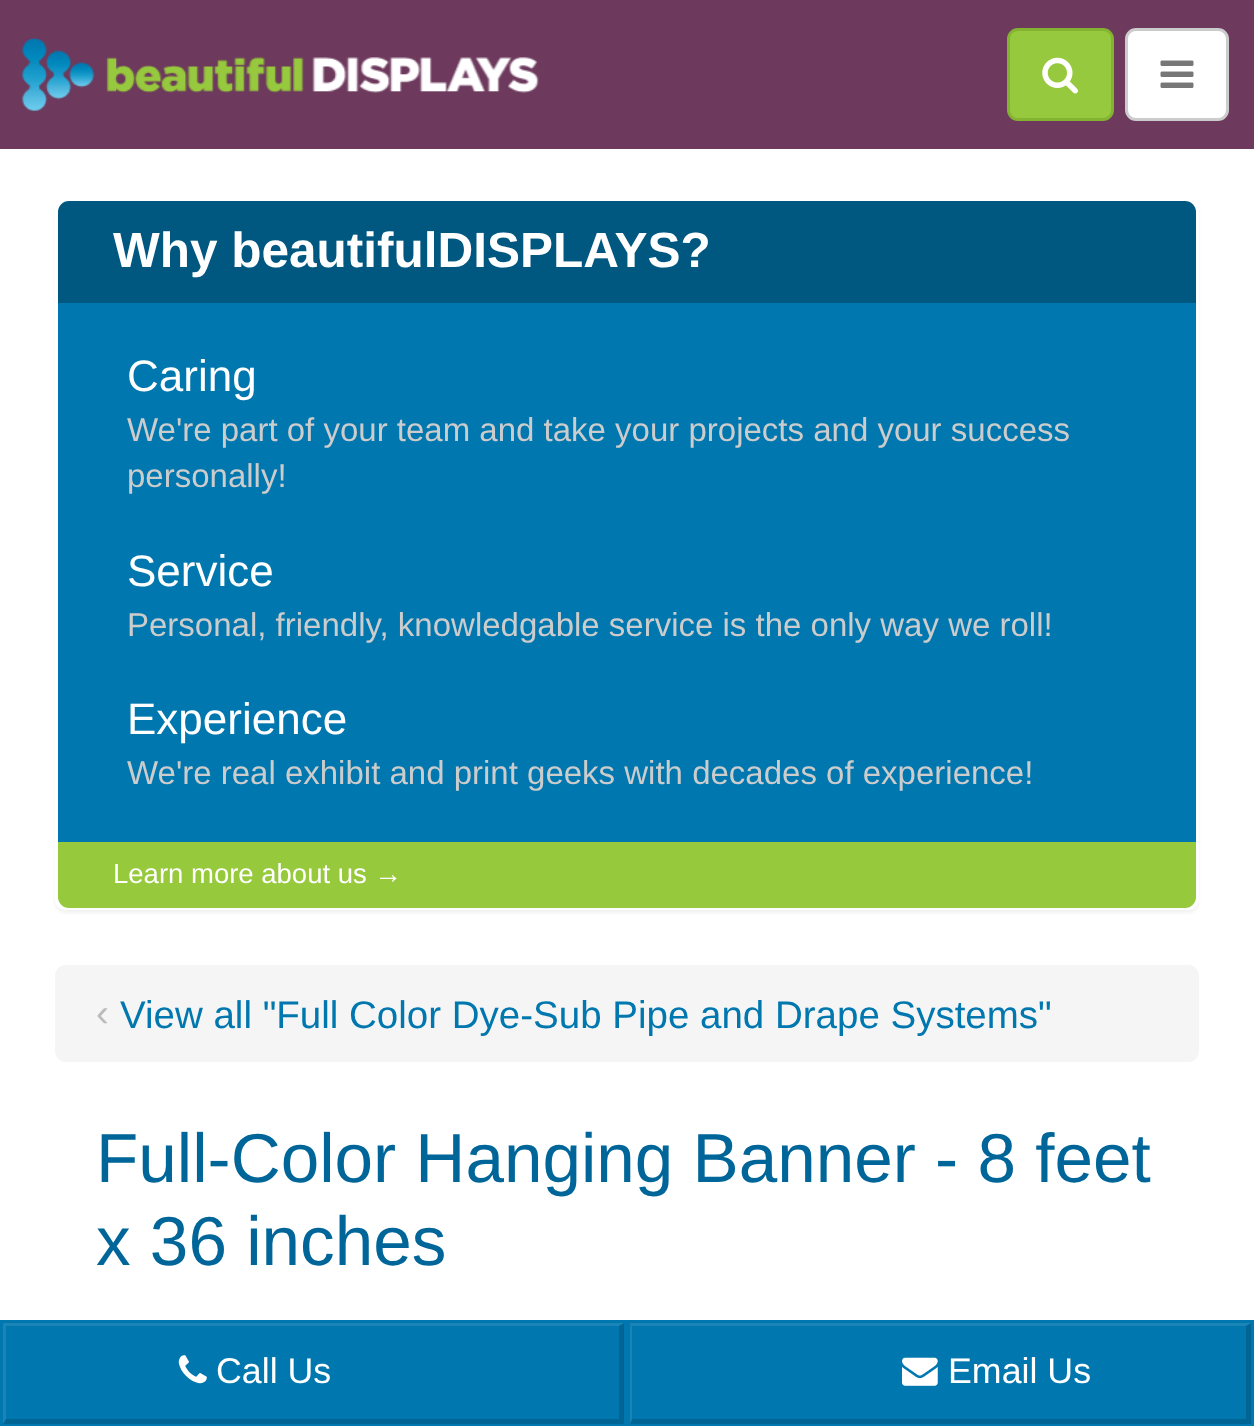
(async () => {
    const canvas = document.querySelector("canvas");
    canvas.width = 1254;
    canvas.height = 1426;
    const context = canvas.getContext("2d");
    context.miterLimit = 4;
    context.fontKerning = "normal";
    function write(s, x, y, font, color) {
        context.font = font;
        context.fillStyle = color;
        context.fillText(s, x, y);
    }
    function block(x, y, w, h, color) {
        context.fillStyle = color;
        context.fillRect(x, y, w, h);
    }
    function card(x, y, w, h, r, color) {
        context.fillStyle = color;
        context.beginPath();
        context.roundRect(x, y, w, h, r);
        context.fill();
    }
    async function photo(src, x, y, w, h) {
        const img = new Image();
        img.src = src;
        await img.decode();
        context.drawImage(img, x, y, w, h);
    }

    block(0, 0, 1254, 1426, "rgb(255, 255, 255)");
    block(0, 0, 1254, 149, "rgb(109, 58, 93)");
    await photo("media/1.png", 22, 37, 517, 74);
    context.fillStyle = "rgb(150, 201, 61)";
    context.beginPath();
    context.roundRect(1008.5, 29.5, 104, 90, 9.5);
    context.fill();
    context.strokeStyle = "rgb(132, 179, 50)";
    context.lineWidth = 3;
    context.stroke();
    await photo("media/2.png", 1042, 57, 36, 37);
    context.fillStyle = "rgb(255, 255, 255)";
    context.beginPath();
    context.roundRect(1126.5, 29.5, 101, 90, 9.5);
    context.fill();
    context.strokeStyle = "rgb(204, 204, 204)";
    context.stroke();
    await photo("media/3.png", 1160, 60, 34, 28);
    context.fillStyle = "rgba(0, 0, 0, 0.05)";
    context.filter = "blur(1.5px)";
    context.beginPath();
    context.roundRect(55, 201, 1144, 712, 11);
    context.fill();
    context.filter = "none";
    card(55, 198, 1144, 712, 11, "rgb(255, 255, 255)");
    context.fillStyle = "rgb(0, 87, 128)";
    context.beginPath();
    context.roundRect(58, 201, 1138, 102, [11, 11, 0, 0]);
    context.fill();
    write("Why beautifulDISPLAYS?", 113, 267, "bold 49.5px Liberation Sans", "rgb(255, 255, 255)");
    block(58, 303, 1138, 539, "rgb(0, 119, 174)");
    write("Caring", 127, 391, "44px Liberation Sans", "rgb(255, 255, 255)");
    write("We're part of your team and take your projects and your success", 127, 441, "33px Liberation Sans", "rgb(204, 204, 204)");
    write("personally!", 127, 487, "33px Liberation Sans", "rgb(204, 204, 204)");
    write("Service", 127, 586, "44px Liberation Sans", "rgb(255, 255, 255)");
    write("Personal, friendly, knowledgable service is the only way we roll!", 127, 636, "33px Liberation Sans", "rgb(204, 204, 204)");
    write("Experience", 127, 734, "44px Liberation Sans", "rgb(255, 255, 255)");
    write("We're real exhibit and print geeks with decades of experience!", 127, 784, "33px Liberation Sans", "rgb(204, 204, 204)");
    context.fillStyle = "rgb(151, 201, 60)";
    context.beginPath();
    context.roundRect(58, 842, 1138, 66, [0, 0, 11, 11]);
    context.fill();
    write("Learn more about us →", 113, 883, "27.5px Liberation Sans", "rgb(255, 255, 255)");
    card(55, 965, 1144, 97, 11, "rgb(245, 245, 245)");
    write("‹", 96, 1026, "38.5px Liberation Sans", "rgb(187, 187, 187)");
    write("View all \"Full Color Dye-Sub Pipe and Drape Systems\"", 120, 1028, "38.5px Liberation Sans", "rgb(0, 119, 174)");
    write("Full-Color Hanging Banner - 8 feet", 96, 1182, "69.25px Liberation Sans", "rgb(0, 102, 153)");
    write("x 36 inches", 96, 1265, "69.25px Liberation Sans", "rgb(0, 102, 153)");
    block(0, 1320, 1254, 106, "rgb(0, 119, 174)");
    context.fillStyle = "rgb(26, 133, 182)";
    context.beginPath();
    context.moveTo(3, 1323);
    context.lineTo(624, 1323);
    context.lineTo(619, 1326);
    context.lineTo(6, 1326);
    context.closePath();
    context.fill();
    context.fillStyle = "rgba(0, 0, 0, 0.15)";
    context.beginPath();
    context.moveTo(624, 1323);
    context.lineTo(624, 1424);
    context.lineTo(619, 1419);
    context.lineTo(619, 1326);
    context.closePath();
    context.fill();
    context.beginPath();
    context.moveTo(624, 1424);
    context.lineTo(3, 1424);
    context.lineTo(6, 1419);
    context.lineTo(619, 1419);
    context.closePath();
    context.fill();
    context.fillStyle = "rgba(255, 255, 255, 0.1)";
    context.beginPath();
    context.moveTo(3, 1424);
    context.lineTo(3, 1323);
    context.lineTo(6, 1326);
    context.lineTo(6, 1419);
    context.closePath();
    context.fill();
    await photo("media/4.png", 178, 1355, 29, 29);
    write("Call Us", 216, 1383, "35.75px Liberation Sans", "rgb(255, 255, 255)");
    context.fillStyle = "rgb(26, 133, 182)";
    context.beginPath();
    context.moveTo(630, 1323);
    context.lineTo(1251, 1323);
    context.lineTo(1246, 1326);
    context.lineTo(632, 1326);
    context.closePath();
    context.fill();
    context.fillStyle = "rgba(0, 0, 0, 0.15)";
    context.beginPath();
    context.moveTo(1251, 1323);
    context.lineTo(1251, 1424);
    context.lineTo(1246, 1419);
    context.lineTo(1246, 1326);
    context.closePath();
    context.fill();
    context.beginPath();
    context.moveTo(1251, 1424);
    context.lineTo(630, 1424);
    context.lineTo(632, 1419);
    context.lineTo(1246, 1419);
    context.closePath();
    context.fill();
    context.fillStyle = "rgba(255, 255, 255, 0.1)";
    context.beginPath();
    context.moveTo(630, 1424);
    context.lineTo(630, 1323);
    context.lineTo(632, 1326);
    context.lineTo(632, 1419);
    context.closePath();
    context.fill();
    await photo("media/5.png", 902, 1357, 36, 29);
    write("Email Us", 948, 1383, "35.75px Liberation Sans", "rgb(255, 255, 255)");
})();
